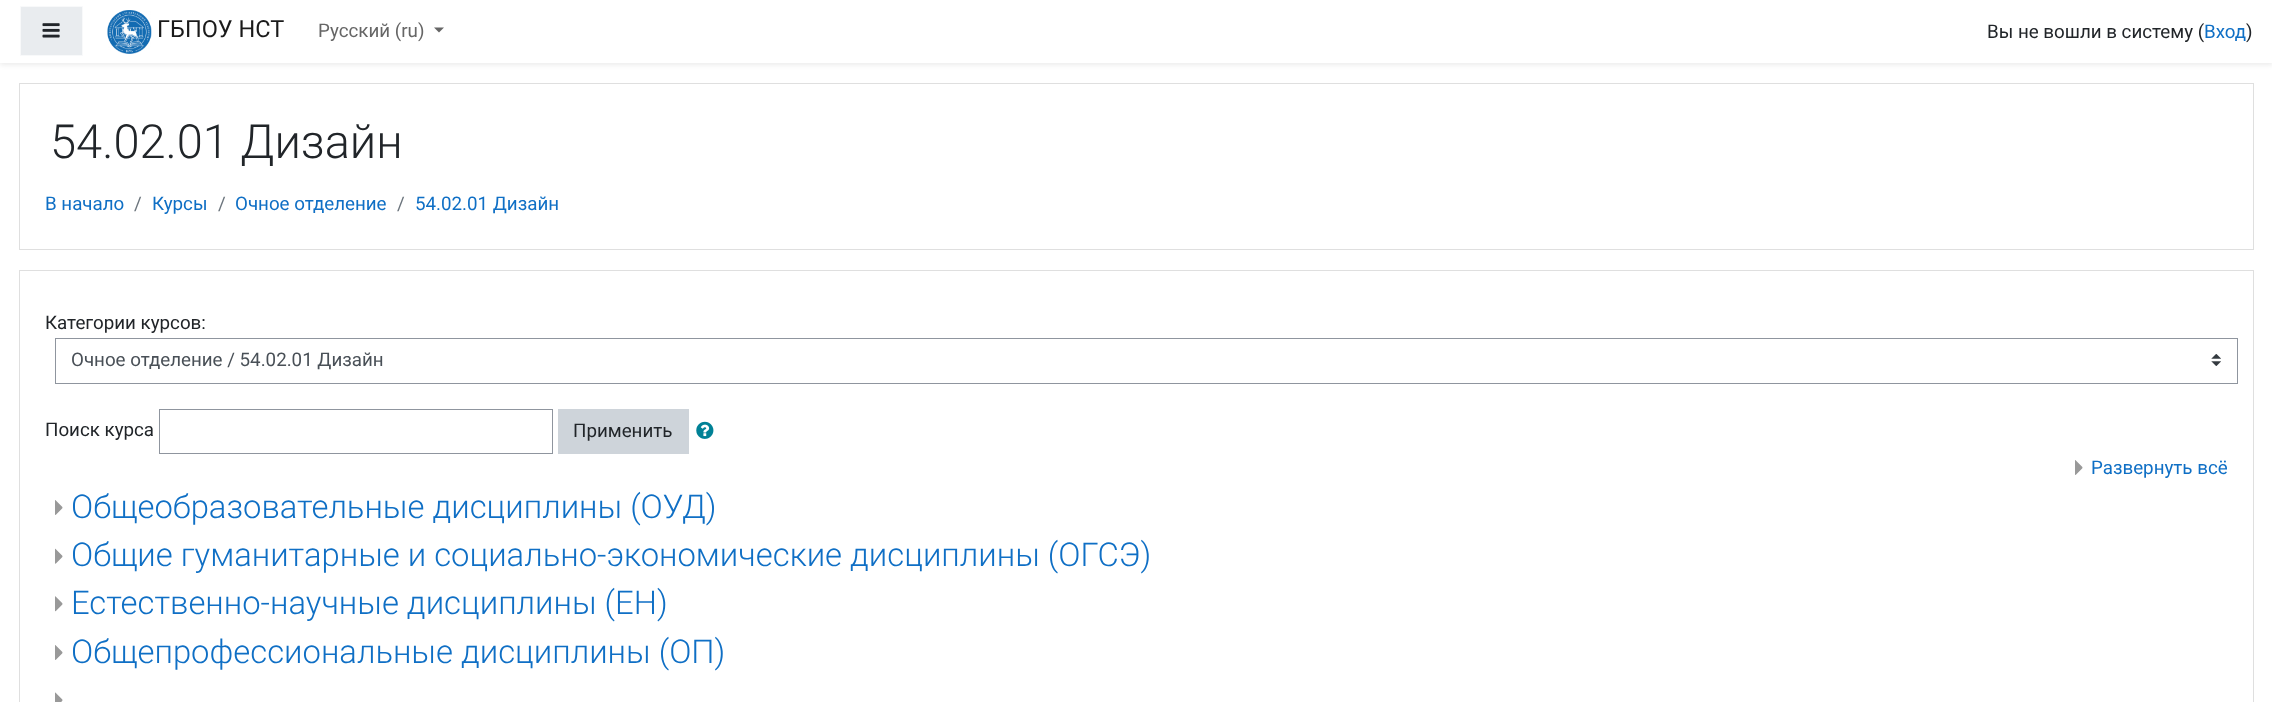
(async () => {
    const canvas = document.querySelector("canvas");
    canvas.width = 2272;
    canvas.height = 702;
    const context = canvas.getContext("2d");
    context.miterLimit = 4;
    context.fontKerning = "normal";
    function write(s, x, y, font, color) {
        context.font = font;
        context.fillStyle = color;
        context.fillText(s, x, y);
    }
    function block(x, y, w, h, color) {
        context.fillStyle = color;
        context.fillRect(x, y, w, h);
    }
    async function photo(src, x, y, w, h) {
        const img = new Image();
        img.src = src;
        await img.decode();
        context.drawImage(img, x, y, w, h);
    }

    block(0, 0, 2272, 702, "rgb(255, 255, 255)");
    context.fillStyle = "rgba(0, 0, 0, 0.08)";
    context.filter = "blur(2.5px)";
    context.beginPath();
    context.rect(0, 3, 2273, 62);
    context.fill();
    context.filter = "none";
    block(0, 0, 2272, 63, "rgb(255, 255, 255)");
    context.fillStyle = "rgb(233, 236, 239)";
    context.beginPath();
    context.rect(20.5, 6.5, 62, 49);
    context.fill();
    context.strokeStyle = "rgb(248, 249, 250)";
    context.stroke();
    await photo("media/1.png", 42, 23, 18, 15);
    await photo("media/2.png", 107, 10, 45, 44);
    write("ГБПОУ НСТ", 157, 37, "23.5px Roboto", "rgb(26, 26, 26)");
    write("Русский (ru)", 318, 37, "18.75px Roboto", "rgb(102, 102, 102)");
    context.beginPath();
    context.moveTo(434, 27.5);
    context.lineTo(444, 27.5);
    context.lineTo(439, 32.5);
    context.closePath();
    context.fill();
    write("Вы не вошли в систему (", 1987, 38, "18.75px Roboto", "rgb(33, 37, 41)");
    write("Вход", 2204, 38, "18.75px Roboto", "rgb(15, 111, 197)");
    write(")", 2246, 38, "18.75px Roboto", "rgb(33, 37, 41)");
    context.strokeStyle = "rgb(223, 223, 223)";
    context.strokeRect(19.5, 83.5, 2234, 166);
    write("54.02.01 Дизайн", 50, 158, "300 47px Roboto", "rgb(33, 37, 41)");
    write("В начало", 45, 210, "18.75px Roboto", "rgb(15, 111, 197)");
    write("/", 134, 210, "18.75px Roboto", "rgb(108, 117, 125)");
    write("Курсы", 152, 210, "18.75px Roboto", "rgb(15, 111, 197)");
    write("/", 218, 210, "18.75px Roboto", "rgb(108, 117, 125)");
    write("Очное отделение", 235, 210, "18.75px Roboto", "rgb(15, 111, 197)");
    write("/", 397, 210, "18.75px Roboto", "rgb(108, 117, 125)");
    write("54.02.01 Дизайн", 415, 210, "18.75px Roboto", "rgb(15, 111, 197)");
    context.strokeRect(19.5, 270.5, 2234, 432);
    write("Категории курсов:", 45, 329, "18.75px Roboto", "rgb(33, 37, 41)");
    await photo("media/3.png", 2211, 354, 10, 12);
    context.strokeStyle = "rgb(143, 149, 158)";
    context.strokeRect(55.5, 338.5, 2182, 45);
    write("Очное отделение / 54.02.01 Дизайн", 71, 366, "18.75px Roboto", "rgb(73, 80, 87)");
    write("Поиск курса", 45, 436, "18.75px Roboto", "rgb(33, 37, 41)");
    context.strokeRect(159.5, 409.5, 393, 44);
    block(558, 409, 131, 45, "rgb(206, 212, 218)");
    write("Применить", 573, 437, "18.75px Roboto", "rgb(33, 37, 41)");
    await photo("media/4.png", 696, 421, 18, 18);
    await photo("media/5.png", 2075, 460, 8, 15);
    write("Развернуть всё", 2091, 474, "18.75px Roboto", "rgb(15, 111, 197)");
    await photo("media/6.png", 55, 500, 8, 15);
    write("Общеобразовательные дисциплины (ОУД)", 71, 518, "300 32.8px Roboto", "rgb(15, 111, 197)");
    await photo("media/7.png", 55, 548, 8, 16);
    write("Общие гуманитарные и социально-экономические дисциплины (ОГСЭ)", 71, 566, "300 32.8px Roboto", "rgb(15, 111, 197)");
    await photo("media/8.png", 55, 596, 8, 16);
    write("Естественно-научные дисциплины (ЕН)", 71, 614, "300 32.8px Roboto", "rgb(15, 111, 197)");
    await photo("media/5.png", 55, 645, 8, 15);
    write("Общепрофессиональные дисциплины (ОП)", 71, 663, "300 32.8px Roboto", "rgb(15, 111, 197)");
    await photo("media/9.png", 55, 692, 8, 10);
})();
